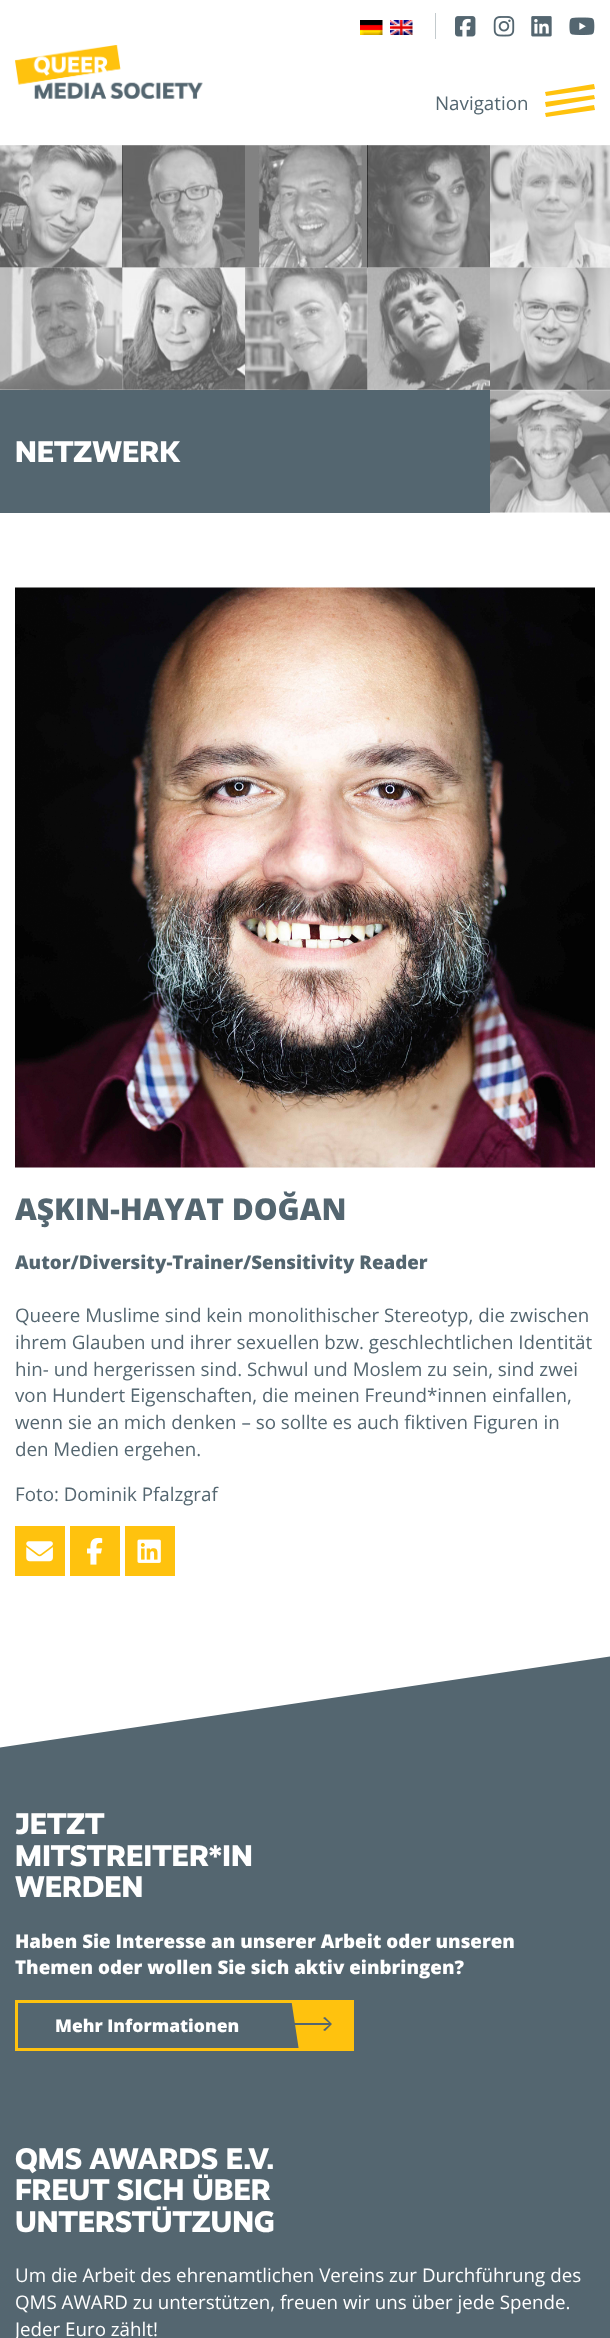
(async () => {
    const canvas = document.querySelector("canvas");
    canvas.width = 610;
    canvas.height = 2338;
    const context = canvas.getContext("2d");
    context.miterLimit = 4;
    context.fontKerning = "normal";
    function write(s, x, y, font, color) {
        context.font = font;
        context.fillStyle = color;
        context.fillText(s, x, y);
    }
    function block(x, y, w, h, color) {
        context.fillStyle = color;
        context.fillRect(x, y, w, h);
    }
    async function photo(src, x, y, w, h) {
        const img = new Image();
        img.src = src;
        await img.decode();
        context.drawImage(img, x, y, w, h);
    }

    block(0, 0, 610, 2338, "rgb(255, 255, 255)");
    block(435, 13, 1, 26, "rgb(195, 202, 205)");
    await photo("media/1.png", 360, 20, 23, 15);
    await photo("media/2.png", 390, 20, 23, 15);
    await photo("media/3.png", 455, 16, 21, 21);
    await photo("media/4.png", 493, 16, 22, 21);
    await photo("media/5.png", 531, 16, 21, 21);
    await photo("media/6.png", 569, 17, 26, 18);
    await photo("media/7.png", 15, 45, 188, 54);
    context.fillStyle = "rgb(255, 194, 14)";
    context.beginPath();
    context.moveTo(545, 92);
    context.lineTo(594, 84);
    context.lineTo(595, 89);
    context.lineTo(546, 96);
    context.closePath();
    context.fill();
    write("Navigation", 435, 110, "18.75px Open Sans", "rgb(84, 102, 112)");
    context.fillStyle = "rgb(255, 194, 14)";
    context.beginPath();
    context.moveTo(545, 102);
    context.lineTo(594, 95);
    context.lineTo(595, 99);
    context.lineTo(546, 107);
    context.closePath();
    context.fill();
    context.beginPath();
    context.moveTo(545, 113);
    context.lineTo(594, 105);
    context.lineTo(595, 110);
    context.lineTo(546, 117);
    context.closePath();
    context.fill();
    await photo("media/8.png", 0, 145, 123, 123);
    await photo("media/9.png", 0, 267, 123, 123);
    await photo("media/10.png", 0, 389, 123, 1);
    await photo("media/11.png", 122, 145, 123, 123);
    await photo("media/12.png", 122, 267, 123, 123);
    await photo("media/13.png", 122, 389, 123, 1);
    await photo("media/14.png", 245, 145, 123, 123);
    await photo("media/15.png", 245, 267, 123, 123);
    await photo("media/16.png", 245, 389, 123, 1);
    await photo("media/17.png", 367, 145, 123, 123);
    await photo("media/18.png", 367, 267, 123, 123);
    await photo("media/19.png", 367, 389, 123, 1);
    await photo("media/20.png", 490, 145, 120, 123);
    await photo("media/21.png", 490, 267, 120, 123);
    await photo("media/22.png", 490, 389, 120, 124);
    block(0, 390, 490, 123, "rgb(84, 102, 112)");
    write("NETZWERK", 15, 462, "800 30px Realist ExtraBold", "rgb(255, 255, 255)");
    await photo("media/23.png", 15, 587, 580, 581);
    write("AŞKIN-HAYAT DOĞAN", 15, 1220, "800 30px Open Sans", "rgb(84, 102, 112)");
    write("Autor/Diversity-Trainer/Sensitivity Reader", 15, 1269, "800 18.75px Open Sans", "rgb(84, 102, 112)");
    write("Queere Muslime sind kein monolithischer Stereotyp, die zwischen", 15, 1322, "18.75px Open Sans", "rgb(84, 102, 112)");
    write("ihrem Glauben und ihrer sexuellen bzw. geschlechtlichen Identität", 15, 1349, "18.75px Open Sans", "rgb(84, 102, 112)");
    write("hin- und hergerissen sind. Schwul und Moslem zu sein, sind zwei", 15, 1376, "18.75px Open Sans", "rgb(84, 102, 112)");
    write("von Hundert Eigenschaften, die meinen Freund*innen einfallen,", 15, 1402, "18.75px Open Sans", "rgb(84, 102, 112)");
    write("wenn sie an mich denken – so sollte es auch fiktiven Figuren in", 15, 1429, "18.75px Open Sans", "rgb(84, 102, 112)");
    write("den Medien ergehen.", 15, 1456, "18.75px Open Sans", "rgb(84, 102, 112)");
    write("Foto: Dominik Pfalzgraf", 15, 1501, "18.75px Open Sans", "rgb(84, 102, 112)");
    block(15, 1526, 50, 50, "rgb(255, 194, 14)");
    await photo("media/24.png", 26, 1541, 27, 21);
    block(70, 1526, 50, 50, "rgb(255, 194, 14)");
    await photo("media/25.png", 87, 1537, 16, 28);
    block(125, 1526, 50, 50, "rgb(255, 194, 14)");
    await photo("media/26.png", 137, 1539, 24, 24);
    context.fillStyle = "rgb(84, 102, 112)";
    context.beginPath();
    context.moveTo(-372, 1803);
    context.lineTo(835, 1623);
    context.lineTo(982, 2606);
    context.lineTo(-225, 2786);
    context.closePath();
    context.fill();
    write("JETZT", 15, 1834, "800 30px Realist ExtraBold", "rgb(255, 255, 255)");
    write("MITSTREITER*IN", 15, 1866, "800 30px Realist ExtraBold", "rgb(255, 255, 255)");
    write("WERDEN", 15, 1897, "800 30px Realist ExtraBold", "rgb(255, 255, 255)");
    write("Haben Sie Interesse an unserer Arbeit oder unseren", 15, 1948, "800 18.75px Open Sans", "rgb(255, 255, 255)");
    write("Themen oder wollen Sie sich aktiv einbringen?", 15, 1974, "800 18.75px Open Sans", "rgb(255, 255, 255)");
    context.strokeStyle = "rgb(255, 194, 14)";
    context.lineWidth = 3;
    context.strokeRect(16.5, 2001.5, 336, 48);
    context.save();
    context.beginPath();
    context.rect(18, 2003, 333, 46);
    context.clip();
    context.fillStyle = "rgb(255, 194, 14)";
    context.beginPath();
    context.moveTo(289, 1985);
    context.lineTo(363, 1974);
    context.lineTo(377, 2066);
    context.lineTo(303, 2077);
    context.closePath();
    context.fill();
    context.restore();
    write("Mehr Informationen", 55, 2032, "800 17.5px Open Sans", "rgb(255, 255, 255)");
    context.fillStyle = "rgb(84, 102, 112)";
    context.beginPath();
    context.moveTo(325, 2031);
    context.lineTo(323, 2030);
    context.lineTo(329, 2025);
    context.lineTo(276, 2025);
    context.lineTo(276, 2023);
    context.lineTo(329, 2023);
    context.lineTo(323, 2018);
    context.lineTo(325, 2017);
    context.lineTo(332, 2024);
    context.closePath();
    context.fill();
    write("QMS AWARDS E.V.", 15, 2169, "800 30px Realist ExtraBold", "rgb(255, 255, 255)");
    write("FREUT SICH ÜBER", 15, 2200, "800 30px Realist ExtraBold", "rgb(255, 255, 255)");
    write("UNTERSTÜTZUNG", 15, 2232, "800 30px Realist ExtraBold", "rgb(255, 255, 255)");
    write("Um die Arbeit des ehrenamtlichen Vereins zur Durchführung des", 15, 2282, "18.75px Open Sans", "rgb(255, 255, 255)");
    write("QMS AWARD zu unterstützen, freuen wir uns über jede Spende.", 15, 2309, "18.75px Open Sans", "rgb(255, 255, 255)");
    write("Jeder Euro zählt!", 15, 2336, "18.75px Open Sans", "rgb(255, 255, 255)");
})();
